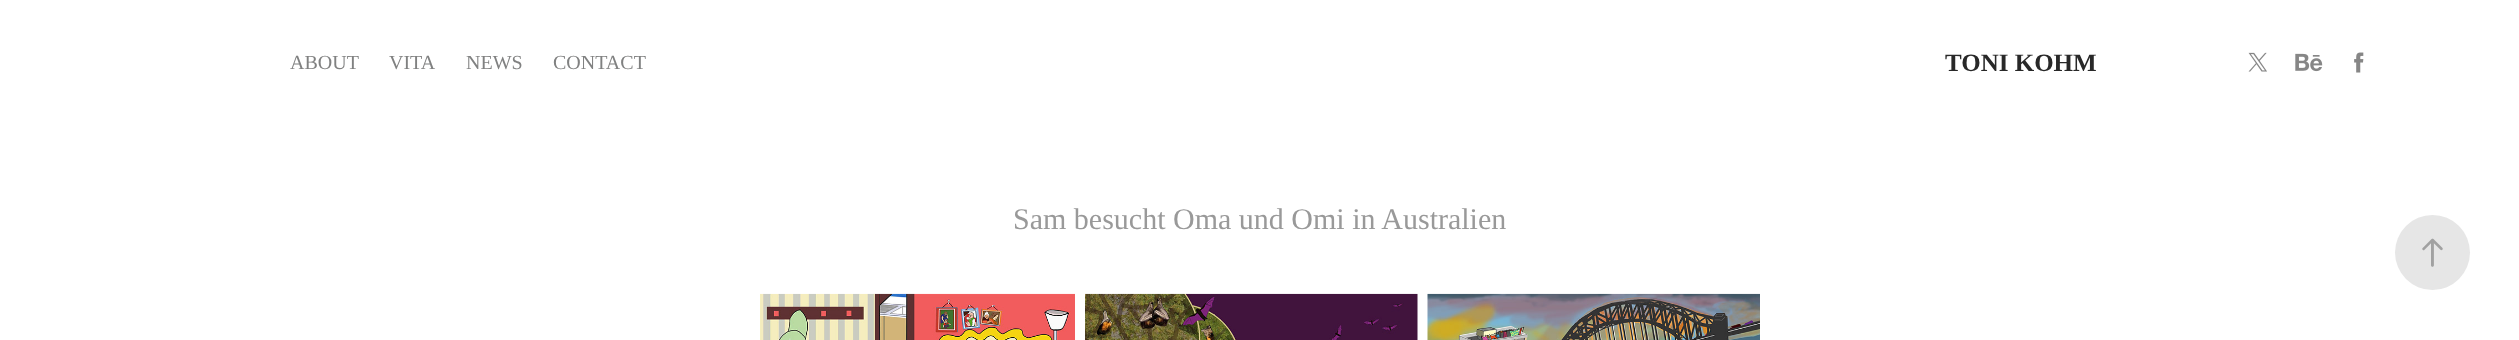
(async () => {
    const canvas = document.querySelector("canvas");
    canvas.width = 2519;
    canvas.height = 340;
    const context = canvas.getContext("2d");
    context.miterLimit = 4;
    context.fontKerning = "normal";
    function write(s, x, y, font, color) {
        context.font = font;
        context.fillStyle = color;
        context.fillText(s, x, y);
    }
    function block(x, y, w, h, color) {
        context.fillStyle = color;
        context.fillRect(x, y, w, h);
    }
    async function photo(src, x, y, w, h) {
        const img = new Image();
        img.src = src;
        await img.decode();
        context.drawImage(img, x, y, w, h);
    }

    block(0, 0, 2519, 340, "rgb(255, 255, 255)");
    write("ABOUT", 290, 69, "20px Liberation Serif", "rgb(128, 129, 129)");
    write("VITA", 389, 69, "20px Liberation Serif", "rgb(128, 129, 129)");
    write("NEWS", 466, 69, "20px Liberation Serif", "rgb(128, 129, 129)");
    write("CONTACT", 553, 69, "20px Liberation Serif", "rgb(128, 129, 129)");
    write("TONI KOHM", 1945, 71, "bold 25px Liberation Serif", "rgb(40, 40, 40)");
    await photo("media/1.png", 2248, 52, 19, 20);
    await photo("media/2.png", 2295, 53, 28, 19);
    await photo("media/3.png", 2354, 52, 10, 21);
    write("Sam besucht Oma und Omi in Australien", 1013, 229, "30px Liberation Serif", "rgb(153, 153, 153)");
    await photo("media/4.png", 760, 293, 315, 47);
    await photo("media/5.png", 1085, 293, 333, 47);
    await photo("media/6.png", 1427, 293, 333, 47);
    context.fillStyle = "rgb(230, 230, 230)";
    context.beginPath();
    context.arc(2432.5, 252.5, 37.5, 0, Math.PI * 2);
    context.fill();
    await photo("media/7.png", 2422, 238, 21, 29);
})();
